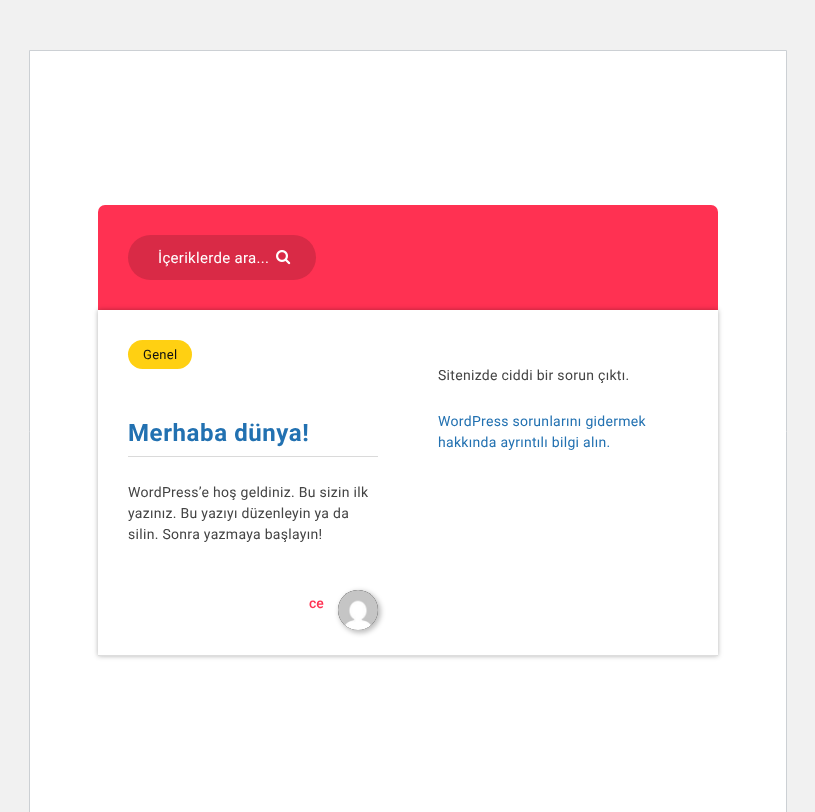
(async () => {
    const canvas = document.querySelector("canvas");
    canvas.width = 815;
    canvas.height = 812;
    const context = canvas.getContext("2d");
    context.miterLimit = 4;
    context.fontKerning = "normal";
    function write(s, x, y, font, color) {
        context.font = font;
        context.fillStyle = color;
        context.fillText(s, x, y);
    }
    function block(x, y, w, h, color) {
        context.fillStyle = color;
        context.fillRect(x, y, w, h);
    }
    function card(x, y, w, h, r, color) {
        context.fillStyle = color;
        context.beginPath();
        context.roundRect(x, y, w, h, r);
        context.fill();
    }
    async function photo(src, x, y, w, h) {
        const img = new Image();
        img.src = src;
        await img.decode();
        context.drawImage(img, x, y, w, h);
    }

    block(0, 0, 815, 812, "rgb(241, 241, 241)");
    context.fillStyle = "rgb(255, 255, 255)";
    context.beginPath();
    context.rect(29.5, 50.5, 757, 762);
    context.fill();
    context.strokeStyle = "rgb(204, 208, 212)";
    context.stroke();
    context.fillStyle = "rgb(255, 49, 82)";
    context.beginPath();
    context.roundRect(98, 205, 620, 105, [7, 7, 0, 0]);
    context.fill();
    card(128, 235, 188, 45, 22.5, "rgb(217, 42, 70)");
    context.letterSpacing = "0.3px";
    write("İçeriklerde ara...", 158, 263, "15px Roboto", "rgb(255, 255, 255)");
    await photo("media/1.png", 276, 250, 15, 15);
    context.save();
    context.beginPath();
    context.moveTo(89, 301);
    context.lineTo(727, 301);
    context.lineTo(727, 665);
    context.lineTo(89, 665);
    context.closePath();
    context.moveTo(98, 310);
    context.lineTo(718, 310);
    context.lineTo(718, 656);
    context.lineTo(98, 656);
    context.closePath();
    context.clip("evenodd");
    context.fillStyle = "rgba(0, 0, 0, 0.3)";
    context.filter = "blur(2.5px)";
    context.beginPath();
    context.rect(98, 310, 620, 346);
    context.fill();
    context.filter = "none";
    context.restore();
    block(98, 655, 620, 1, "rgb(221, 221, 221)");
    card(128, 340, 64, 29, 14.5, "rgb(255, 208, 18)");
    write("Genel", 143, 359, "13px Roboto", "rgb(17, 17, 17)");
    block(128, 456, 250, 1, "rgb(218, 218, 218)");
    context.letterSpacing = "0.6px";
    write("Merhaba dünya!", 128, 441, "bold 24px Roboto", "rgb(34, 113, 177)");
    context.letterSpacing = "0.3px";
    write("WordPress’e hoş geldiniz. Bu sizin ilk", 128, 497, "14px Roboto", "rgb(68, 68, 68)");
    write("yazınız. Bu yazıyı düzenleyin ya da", 128, 518, "14px Roboto", "rgb(68, 68, 68)");
    write("silin. Sonra yazmaya başlayın!", 128, 539, "14px Roboto", "rgb(68, 68, 68)");
    context.letterSpacing = "0px";
    write("ce", 309, 608, "500 14px Roboto", "rgb(255, 49, 82)");
    context.fillStyle = "rgba(0, 0, 0, 0.25)";
    context.filter = "blur(2.5px)";
    context.beginPath();
    context.roundRect(339, 591, 42, 42, 21);
    context.fill();
    context.filter = "none";
    context.fillStyle = "rgb(17, 17, 17)";
    context.beginPath();
    context.arc(358, 610, 20, 0, Math.PI * 2);
    context.fill();
    await photo("media/2.png", 338, 590, 40, 40);
    context.letterSpacing = "0.3px";
    write("Sitenizde ciddi bir sorun çıktı.", 438, 380, "14px Roboto", "rgb(68, 68, 68)");
    write("WordPress sorunlarını gidermek", 438, 426, "14px Roboto", "rgb(34, 113, 177)");
    write("hakkında ayrıntılı bilgi alın.", 438, 447, "14px Roboto", "rgb(34, 113, 177)");
})();
